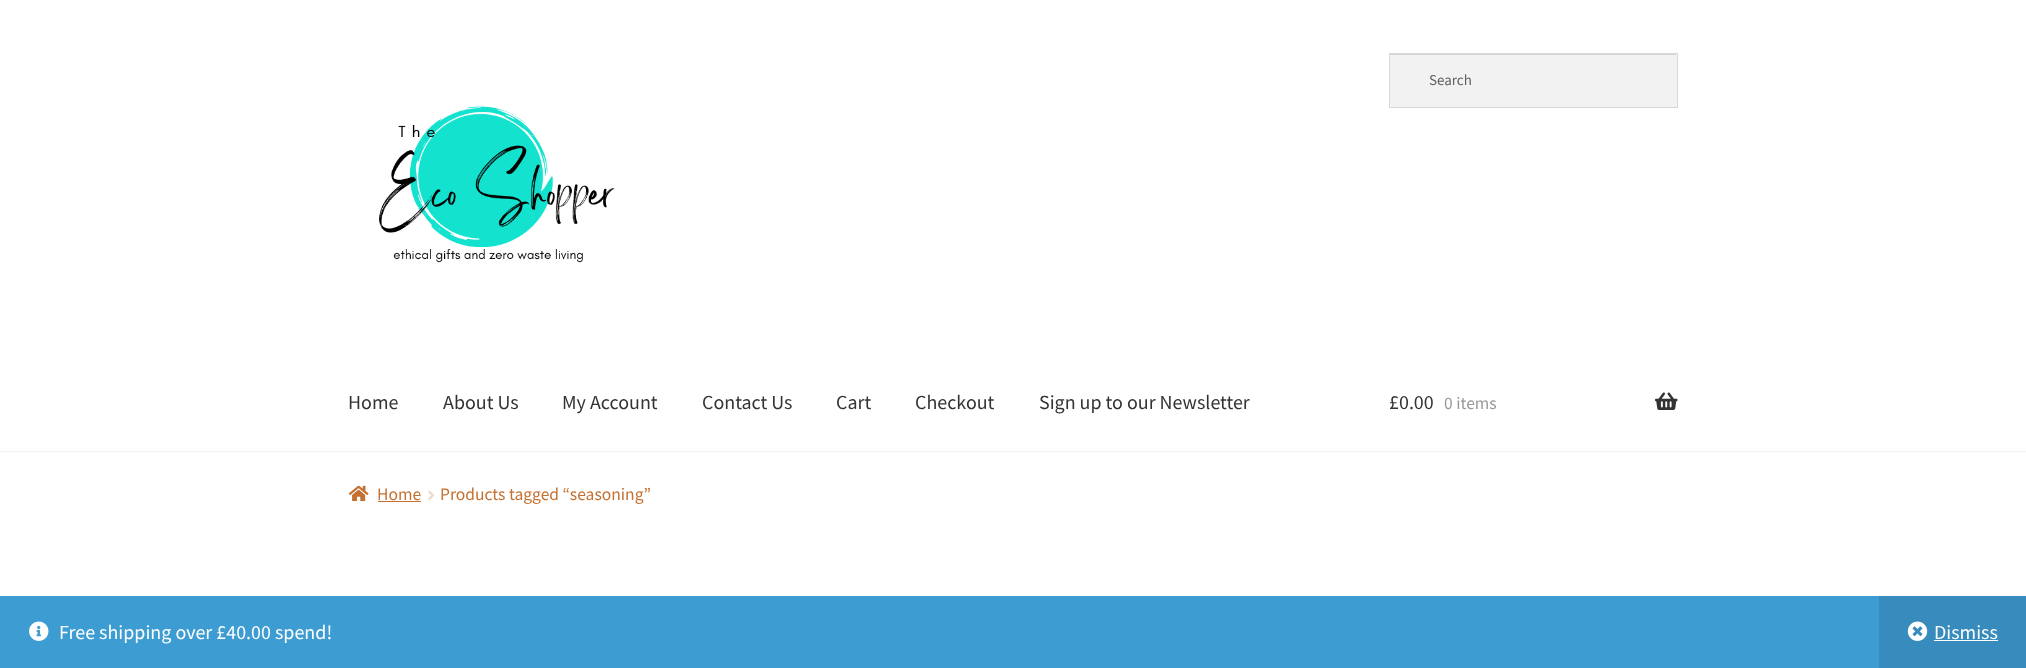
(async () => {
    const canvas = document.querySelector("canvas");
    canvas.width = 2026;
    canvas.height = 668;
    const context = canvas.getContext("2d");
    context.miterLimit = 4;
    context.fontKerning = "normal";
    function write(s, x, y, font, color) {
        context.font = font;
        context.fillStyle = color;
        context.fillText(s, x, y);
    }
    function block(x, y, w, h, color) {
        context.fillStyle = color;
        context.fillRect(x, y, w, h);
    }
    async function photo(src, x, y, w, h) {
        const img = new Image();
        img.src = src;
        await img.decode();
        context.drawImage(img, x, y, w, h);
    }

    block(0, 0, 2026, 668, "rgb(255, 255, 255)");
    block(0, 451, 2026, 1, "rgb(240, 240, 240)");
    block(1390, 54, 287, 53, "rgb(242, 242, 242)");
    block(1390, 54, 286, 1, "rgb(212, 212, 212)");
    context.strokeStyle = "rgb(216, 216, 216)";
    context.strokeRect(1389.5, 53.5, 288, 54);
    write("Search", 1429, 85, "15px Source Sans Pro", "rgb(97, 97, 97)");
    await photo("media/1.png", 379, 106, 236, 157);
    write("Home", 348, 409, "20px Source Sans Pro", "rgb(51, 51, 51)");
    write("About Us", 443, 409, "20px Source Sans Pro", "rgb(51, 51, 51)");
    write("My Account", 562, 409, "20px Source Sans Pro", "rgb(51, 51, 51)");
    write("Contact Us", 702, 409, "20px Source Sans Pro", "rgb(51, 51, 51)");
    write("Cart", 836, 409, "20px Source Sans Pro", "rgb(51, 51, 51)");
    write("Checkout", 915, 409, "20px Source Sans Pro", "rgb(51, 51, 51)");
    write("Sign up to our Newsletter", 1039, 409, "20px Source Sans Pro", "rgb(51, 51, 51)");
    write("£0.00", 1389, 409, "20px Source Sans Pro", "rgb(51, 51, 51)");
    write("0 items", 1444, 409, "17.5px Source Sans Pro", "rgb(153, 153, 153)");
    await photo("media/2.png", 1655, 392, 23, 18);
    await photo("media/3.png", 348, 485, 21, 17);
    write("Home", 377, 500, "17.5px Source Sans Pro", "rgb(196, 112, 48)");
    block(378, 501, 43, 1, "rgb(196, 112, 48)");
    await photo("media/4.png", 428, 490, 7, 10);
    write("Products tagged “seasoning”", 440, 500, "17.5px Source Sans Pro", "rgb(196, 112, 48)");
    block(0, 596, 1879, 72, "rgb(61, 156, 210)");
    await photo("media/5.png", 29, 621, 20, 20);
    write("Free shipping over £40.00 spend!", 59, 639, "20px Source Sans Pro", "rgb(255, 255, 255)");
    block(1879, 596, 147, 72, "rgb(55, 140, 189)");
    await photo("media/6.png", 1907, 621, 21, 20);
    write("Dismiss", 1934, 639, "20px Source Sans Pro", "rgb(255, 255, 255)");
    block(1934, 640, 64, 1, "rgb(255, 255, 255)");
})();
